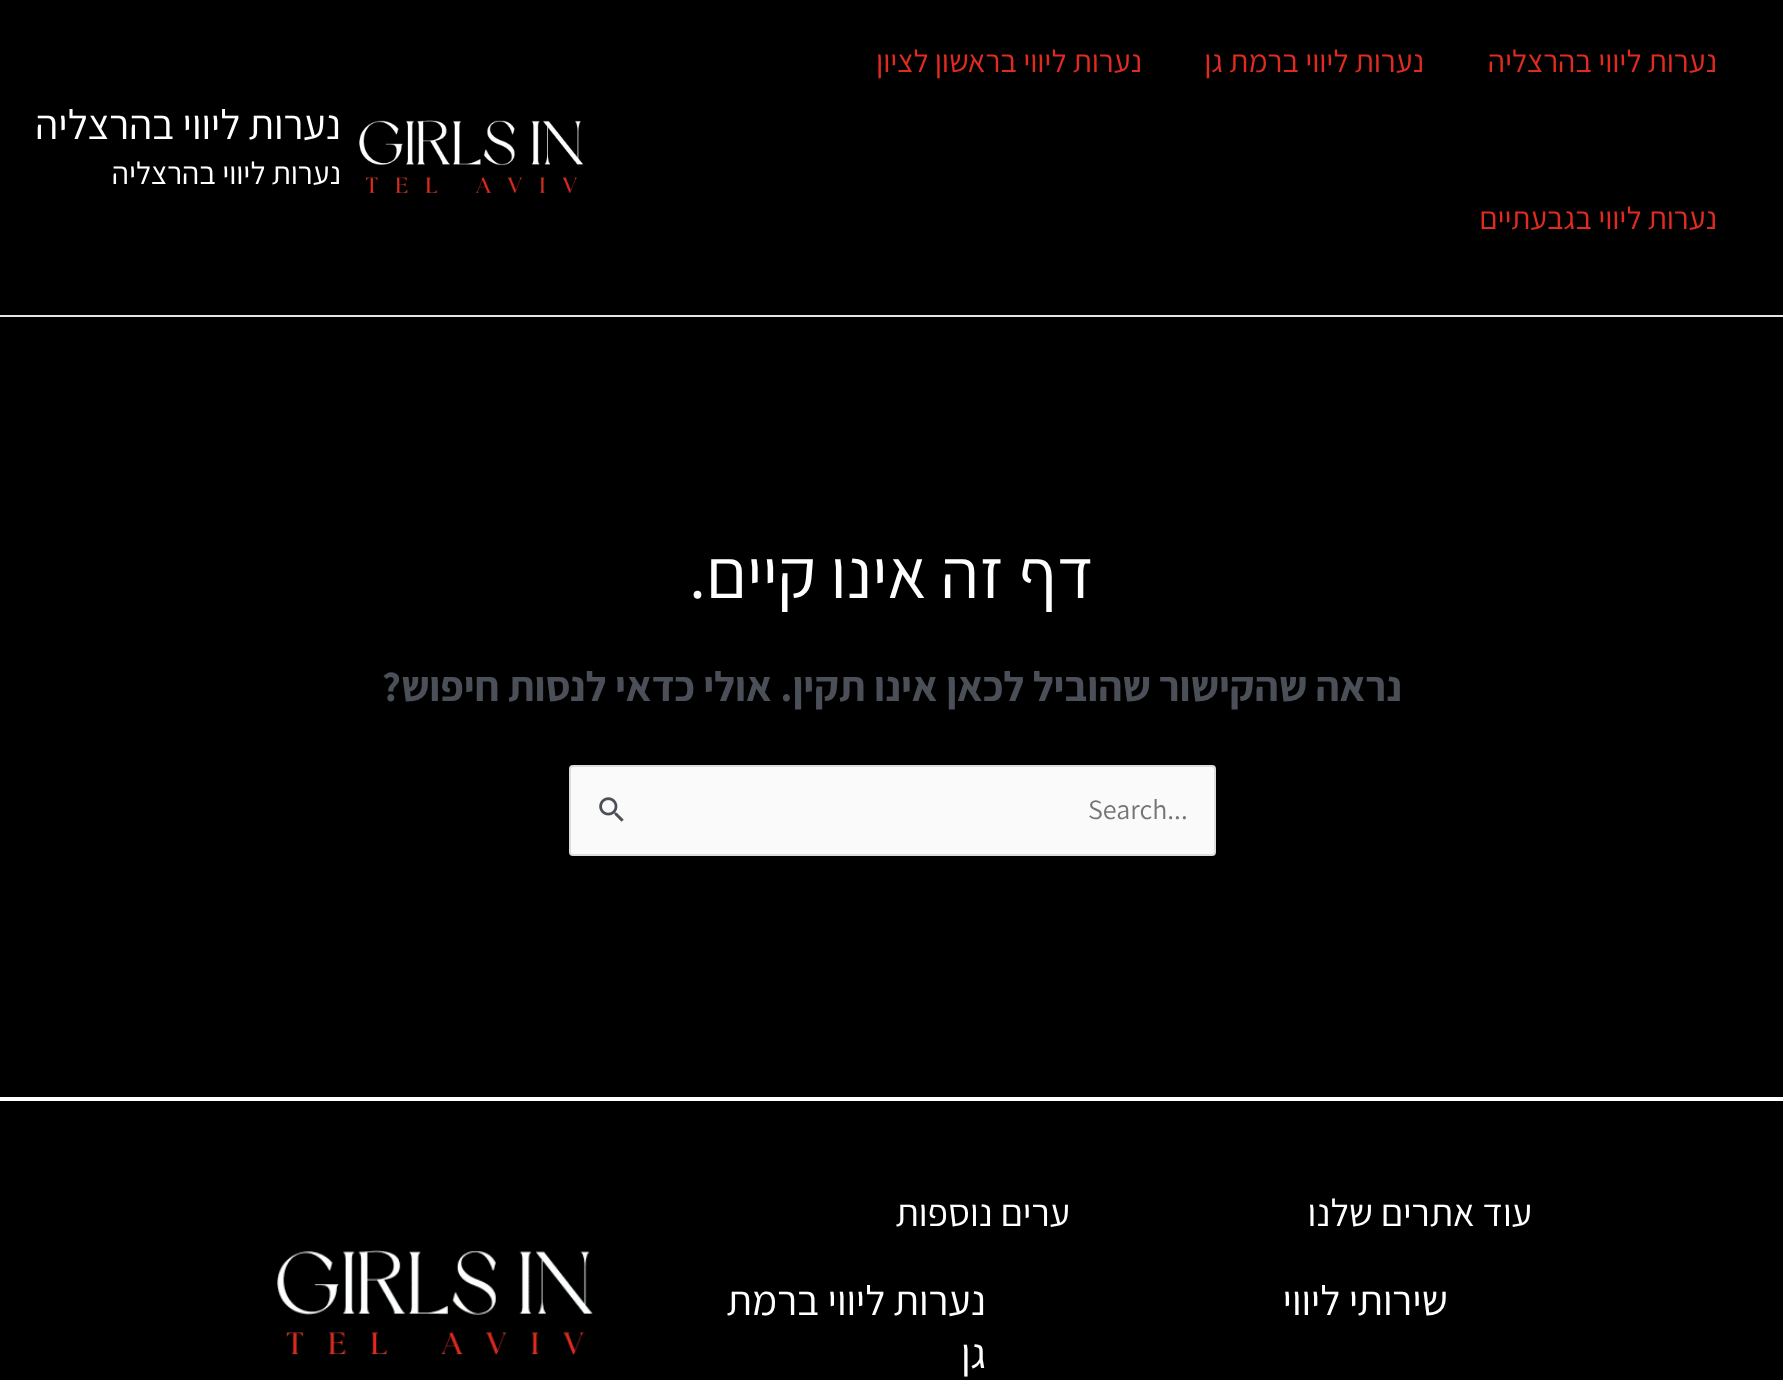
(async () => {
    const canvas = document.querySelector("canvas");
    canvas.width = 1783;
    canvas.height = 1380;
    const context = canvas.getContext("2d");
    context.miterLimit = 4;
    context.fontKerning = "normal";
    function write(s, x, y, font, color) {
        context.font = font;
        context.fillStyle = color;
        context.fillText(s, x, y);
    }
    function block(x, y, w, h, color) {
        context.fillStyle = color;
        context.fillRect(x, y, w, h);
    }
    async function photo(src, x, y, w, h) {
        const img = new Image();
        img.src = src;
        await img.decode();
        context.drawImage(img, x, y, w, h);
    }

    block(0, 0, 1783, 1380, "rgb(0, 0, 0)");
    block(0, 315, 1783, 2, "rgb(229, 229, 229)");
    context.direction = "rtl";
    write("נערות ליווי בהרצליה", 1717, 72, "31.5px Assistant", "rgb(224, 43, 32)");
    write("נערות ליווי ברמת גן", 1424, 72, "31.5px Assistant", "rgb(224, 43, 32)");
    write("נערות ליווי בראשון לציון", 1142, 72, "31.5px Assistant", "rgb(224, 43, 32)");
    write("נערות ליווי בגבעתיים", 1717, 229, "31.5px Assistant", "rgb(224, 43, 32)");
    await photo("media/1.png", 359, 120, 225, 73);
    write("נערות ליווי בהרצליה", 341, 139, "42px Assistant", "rgb(255, 255, 255)");
    write("נערות ליווי בהרצליה", 341, 184, "31.5px Assistant", "rgb(255, 255, 255)");
    write("דף זה אינו קיים.", 1094, 598, "70px Assistant", "rgb(255, 255, 255)");
    write("נראה שהקישור שהוביל לכאן אינו תקין. אולי כדאי לנסות חיפוש?", 1402, 701, "bold 42px Assistant", "rgb(75, 79, 88)");
    context.fillStyle = "rgb(250, 250, 250)";
    context.beginPath();
    context.roundRect(570, 766, 645, 89, 3);
    context.fill();
    context.strokeStyle = "rgb(221, 221, 221)";
    context.lineWidth = 2;
    context.stroke();
    context.direction = "ltr";
    write("Search...", 1088, 819, "28px Assistant", "rgb(117, 117, 117)");
    await photo("media/2.png", 599, 797, 25, 25);
    block(0, 1097, 1783, 4, "rgb(255, 255, 255)");
    context.direction = "rtl";
    write("עוד אתרים שלנו", 1532, 1226, "38.5px Assistant", "rgb(255, 255, 255)");
    write("שירותי ליווי", 1448, 1315, "42px Assistant", "rgb(255, 255, 255)");
    write("ערים נוספות", 1070, 1226, "38.5px Assistant", "rgb(255, 255, 255)");
    write("נערות ליווי ברמת", 986, 1315, "42px Assistant", "rgb(255, 255, 255)");
    write("גן", 986, 1368, "42px Assistant", "rgb(255, 255, 255)");
    await photo("media/3.png", 277, 1250, 316, 105);
})();
